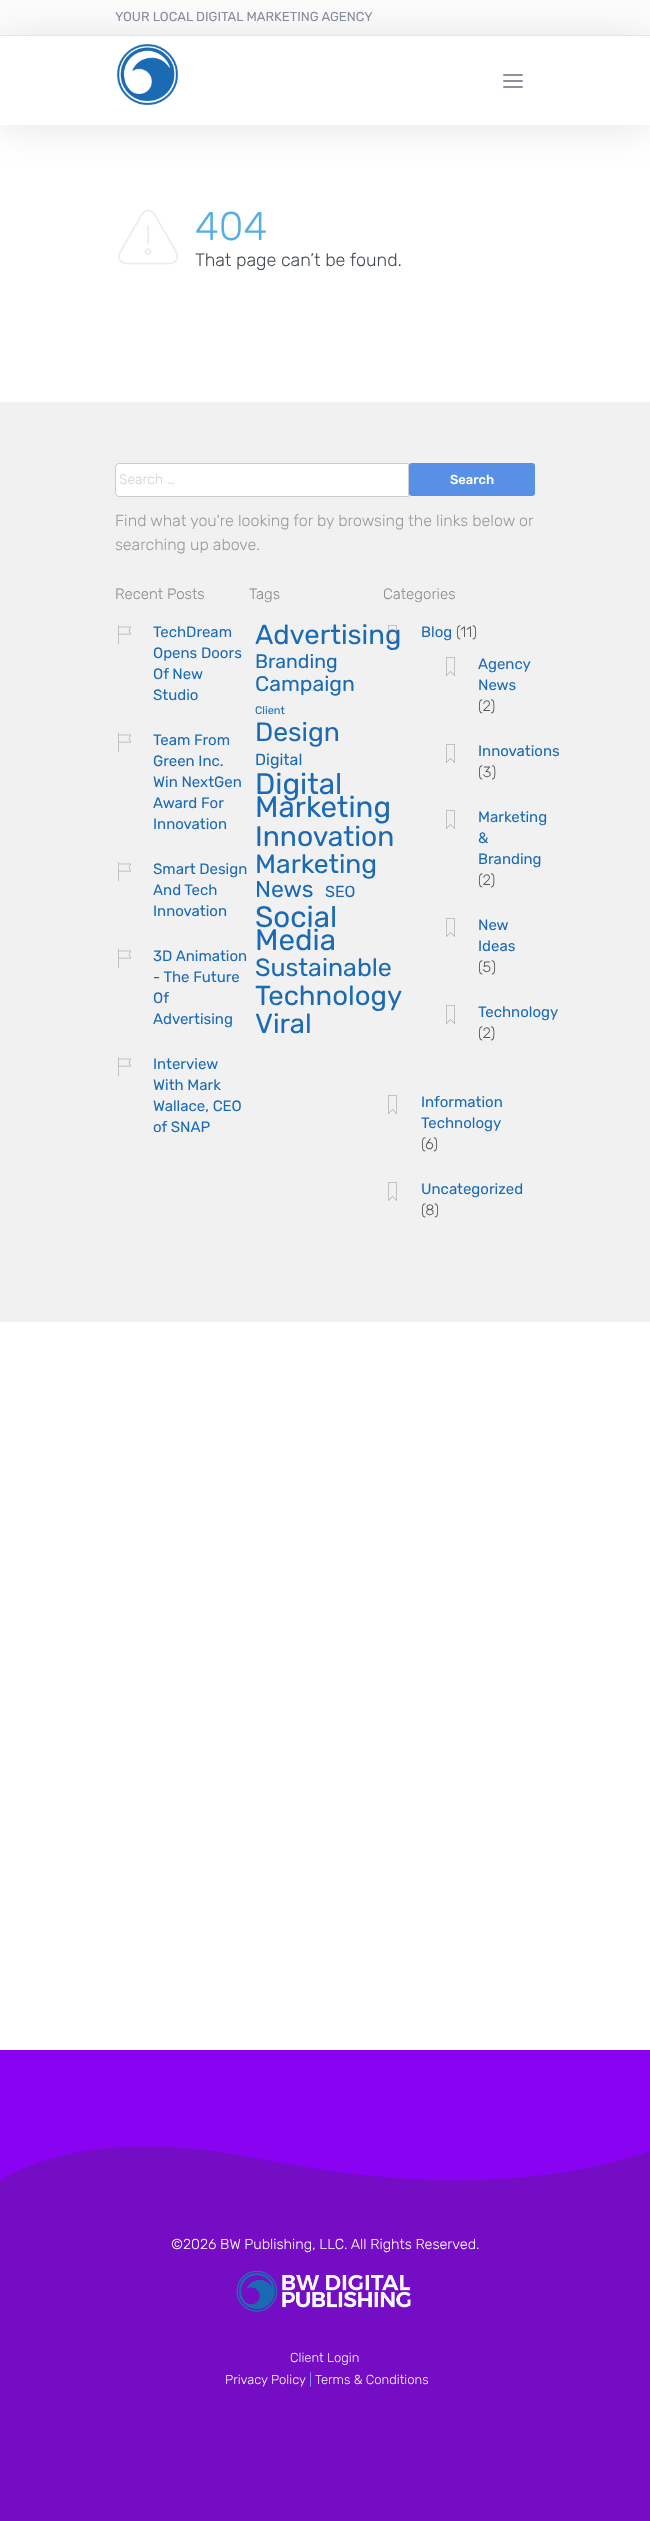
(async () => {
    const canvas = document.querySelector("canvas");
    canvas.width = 650;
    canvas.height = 2521;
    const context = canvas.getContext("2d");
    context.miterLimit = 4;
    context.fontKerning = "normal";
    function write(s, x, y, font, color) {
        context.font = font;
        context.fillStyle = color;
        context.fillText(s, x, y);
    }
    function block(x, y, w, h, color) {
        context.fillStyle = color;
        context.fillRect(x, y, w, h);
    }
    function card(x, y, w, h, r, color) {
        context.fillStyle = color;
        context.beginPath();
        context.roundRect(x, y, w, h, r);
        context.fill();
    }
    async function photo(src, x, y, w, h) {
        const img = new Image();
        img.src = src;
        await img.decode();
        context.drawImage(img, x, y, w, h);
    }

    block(0, 0, 650, 2521, "rgb(255, 255, 255)");
    block(0, 0, 650, 35, "rgb(252, 252, 252)");
    context.save();
    context.beginPath();
    context.moveTo(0, 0);
    context.lineTo(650, 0);
    context.lineTo(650, 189);
    context.lineTo(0, 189);
    context.closePath();
    context.moveTo(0, 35);
    context.lineTo(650, 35);
    context.lineTo(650, 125);
    context.lineTo(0, 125);
    context.closePath();
    context.clip("evenodd");
    context.fillStyle = "rgba(0, 0, 0, 0.1)";
    context.filter = "blur(20px)";
    context.beginPath();
    context.rect(0, 38, 650, 90);
    context.fill();
    context.filter = "none";
    context.restore();
    block(0, 35, 650, 1, "rgb(230, 230, 230)");
    await photo("media/1.png", 117, 44, 61, 61);
    await photo("media/2.png", 503, 74, 20, 14);
    write("YOUR LOCAL DIGITAL MARKETING AGENCY", 115, 21, "13px Rubik", "rgb(135, 140, 156)");
    await photo("media/3.png", 118, 209, 60, 56);
    write("404", 195, 240, "300 40px Rubik", "rgb(86, 174, 227)");
    write("That page can’t be found.", 195, 266, "300 18px Rubik", "rgb(65, 72, 77)");
    block(0, 402, 650, 920, "rgb(241, 241, 241)");
    context.fillStyle = "rgb(255, 255, 255)";
    context.beginPath();
    context.roundRect(115.5, 463.5, 293, 33, [3.5, 0, 0, 3.5]);
    context.fill();
    context.strokeStyle = "rgb(204, 204, 204)";
    context.stroke();
    write("Search …", 119, 484, "300 14px Rubik", "rgb(213, 210, 210)");
    card(409, 463, 126, 33, 3, "rgb(88, 144, 229)");
    write("Search", 450, 484, "500 13px Rubik", "rgb(255, 255, 255)");
    write("Find what you're looking for by browsing the links below or", 115, 526, "300 16px Rubik", "rgb(154, 154, 154)");
    write("searching up above.", 115, 550, "300 16px Rubik", "rgb(154, 154, 154)");
    write("Recent Posts", 115, 599, "300 15px Rubik", "rgb(134, 137, 140)");
    await photo("media/4.png", 118, 625, 13, 20);
    write("TechDream", 153, 637, "15px Rubik", "rgb(26, 106, 180)");
    write("Opens Doors", 153, 658, "15px Rubik", "rgb(26, 106, 180)");
    write("Of New", 153, 679, "15px Rubik", "rgb(26, 106, 180)");
    write("Studio", 153, 700, "15px Rubik", "rgb(26, 106, 180)");
    await photo("media/4.png", 118, 733, 13, 20);
    write("Team From", 153, 745, "15px Rubik", "rgb(26, 106, 180)");
    write("Green Inc.", 153, 766, "15px Rubik", "rgb(26, 106, 180)");
    write("Win NextGen", 153, 787, "15px Rubik", "rgb(26, 106, 180)");
    write("Award For", 153, 808, "15px Rubik", "rgb(26, 106, 180)");
    write("Innovation", 153, 829, "15px Rubik", "rgb(26, 106, 180)");
    await photo("media/4.png", 118, 862, 13, 20);
    write("Smart Design", 153, 874, "15px Rubik", "rgb(26, 106, 180)");
    write("And Tech", 153, 895, "15px Rubik", "rgb(26, 106, 180)");
    write("Innovation", 153, 916, "15px Rubik", "rgb(26, 106, 180)");
    await photo("media/4.png", 118, 949, 13, 20);
    write("3D Animation", 153, 961, "15px Rubik", "rgb(26, 106, 180)");
    write("- The Future", 153, 982, "15px Rubik", "rgb(26, 106, 180)");
    write("Of", 153, 1003, "15px Rubik", "rgb(26, 106, 180)");
    write("Advertising", 153, 1024, "15px Rubik", "rgb(26, 106, 180)");
    await photo("media/4.png", 118, 1057, 13, 20);
    write("Interview", 153, 1069, "15px Rubik", "rgb(26, 106, 180)");
    write("With Mark", 153, 1090, "15px Rubik", "rgb(26, 106, 180)");
    write("Wallace, CEO", 153, 1111, "15px Rubik", "rgb(26, 106, 180)");
    write("of SNAP", 153, 1132, "15px Rubik", "rgb(26, 106, 180)");
    write("Tags", 249, 599, "300 15px Rubik", "rgb(134, 137, 140)");
    write("Advertising", 255, 644, "27.5px Rubik", "rgb(26, 106, 180)");
    write("Branding", 255, 668, "19.5px Rubik", "rgb(26, 106, 180)");
    write("Campaign", 255, 691, "21.25px Rubik", "rgb(26, 106, 180)");
    write("Client", 255, 714, "11px Rubik", "rgb(26, 106, 180)");
    write("Design", 255, 741, "26.5px Rubik", "rgb(26, 106, 180)");
    write("Digital", 255, 765, "16px Rubik", "rgb(26, 106, 180)");
    write("Digital", 255, 794, "29.5px Rubik", "rgb(26, 106, 180)");
    write("Marketing", 255, 817, "29.5px Rubik", "rgb(26, 106, 180)");
    write("Innovation", 255, 846, "28.25px Rubik", "rgb(26, 106, 180)");
    write("Marketing", 255, 873, "26.5px Rubik", "rgb(26, 106, 180)");
    write("News", 255, 897, "23px Rubik", "rgb(26, 106, 180)");
    write("SEO", 325, 897, "16px Rubik", "rgb(26, 106, 180)");
    write("Social", 255, 927, "29.5px Rubik", "rgb(26, 106, 180)");
    write("Media", 255, 950, "29.5px Rubik", "rgb(26, 106, 180)");
    write("Sustainable", 255, 976, "25px Rubik", "rgb(26, 106, 180)");
    write("Technology", 255, 1005, "27.5px Rubik", "rgb(26, 106, 180)");
    write("Viral", 255, 1033, "27.5px Rubik", "rgb(26, 106, 180)");
    write("Categories", 383, 599, "300 15px Rubik", "rgb(134, 137, 140)");
    await photo("media/5.png", 388, 625, 9, 19);
    write("Blog", 421, 637, "15px Rubik", "rgb(26, 106, 180)");
    write("(11)", 456, 637, "300 15px Rubik", "rgb(85, 86, 89)");
    await photo("media/6.png", 446, 657, 9, 19);
    write("Agency", 478, 669, "15px Rubik", "rgb(26, 106, 180)");
    write("News", 478, 690, "15px Rubik", "rgb(26, 106, 180)");
    write("(2)", 478, 711, "300 15px Rubik", "rgb(85, 86, 89)");
    await photo("media/6.png", 446, 744, 9, 19);
    write("Innovations", 478, 756, "15px Rubik", "rgb(26, 106, 180)");
    write("(3)", 478, 777, "300 15px Rubik", "rgb(85, 86, 89)");
    await photo("media/6.png", 446, 810, 9, 19);
    write("Marketing", 478, 822, "15px Rubik", "rgb(26, 106, 180)");
    write("&", 478, 843, "15px Rubik", "rgb(26, 106, 180)");
    write("Branding", 478, 864, "15px Rubik", "rgb(26, 106, 180)");
    write("(2)", 478, 885, "300 15px Rubik", "rgb(85, 86, 89)");
    await photo("media/6.png", 446, 918, 9, 19);
    write("New", 478, 930, "15px Rubik", "rgb(26, 106, 180)");
    write("Ideas", 478, 951, "15px Rubik", "rgb(26, 106, 180)");
    write("(5)", 478, 972, "300 15px Rubik", "rgb(85, 86, 89)");
    await photo("media/6.png", 446, 1005, 9, 19);
    write("Technology", 478, 1017, "15px Rubik", "rgb(26, 106, 180)");
    write("(2)", 478, 1038, "300 15px Rubik", "rgb(85, 86, 89)");
    await photo("media/6.png", 388, 1095, 9, 19);
    write("Information", 421, 1107, "15px Rubik", "rgb(26, 106, 180)");
    write("Technology", 421, 1128, "15px Rubik", "rgb(26, 106, 180)");
    write("(6)", 421, 1149, "300 15px Rubik", "rgb(85, 86, 89)");
    await photo("media/6.png", 388, 1182, 9, 19);
    write("Uncategorized", 421, 1194, "15px Rubik", "rgb(26, 106, 180)");
    write("(8)", 421, 1215, "300 15px Rubik", "rgb(85, 86, 89)");
    block(0, 2050, 650, 131, "rgb(138, 2, 242)");
    context.fillStyle = "rgb(116, 13, 195)";
    context.beginPath();
    context.moveTo(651, 2151);
    context.bezierCurveTo(546, 2187, 415, 2190, 260, 2159);
    context.bezierCurveTo(149, 2137, 62, 2144, -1, 2181);
    context.lineTo(-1, 2182);
    context.lineTo(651, 2182);
    context.closePath();
    context.fill();
    block(0, 2182, 650, 339, "rgb(116, 13, 195)");
    write("©2026 BW Publishing, LLC. All Rights Reserved.", 171, 2249, "300 14.4px Rubik", "rgb(255, 255, 255)");
    await photo("media/7.png", 236, 2270, 175, 42);
    write("Client Login", 290, 2362, "300 13px Rubik", "rgb(240, 245, 254)");
    write("Privacy Policy", 225, 2384, "300 13px Rubik", "rgb(240, 245, 254)");
    write("|", 309, 2384, "300 13px Rubik", "rgb(137, 175, 250)");
    write("Terms & Conditions", 315, 2384, "300 13px Rubik", "rgb(240, 245, 254)");
})();
